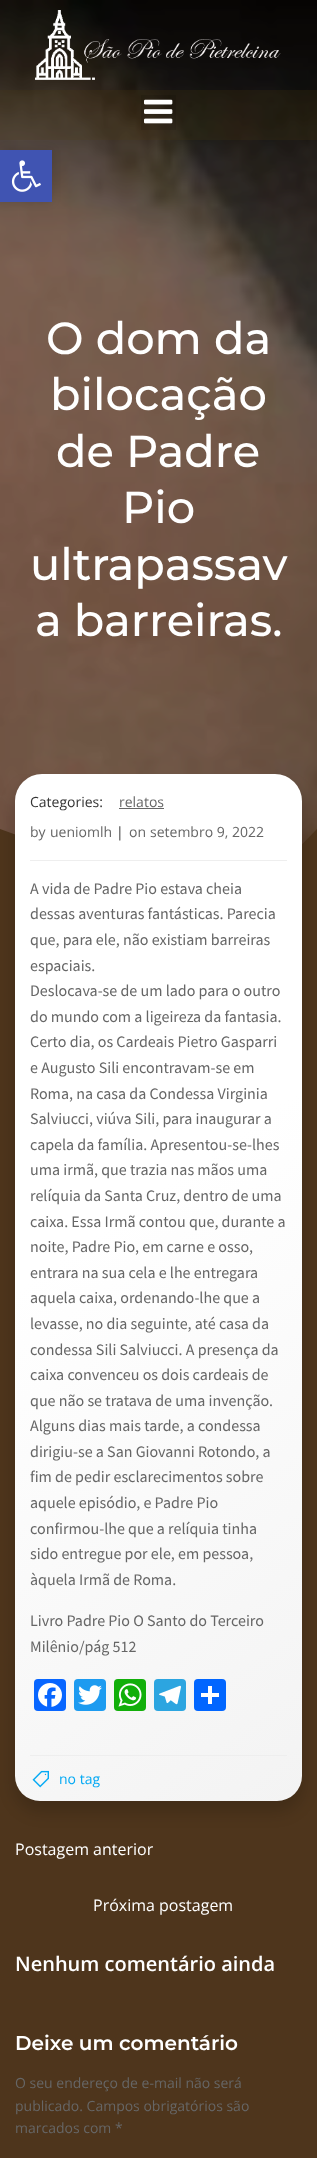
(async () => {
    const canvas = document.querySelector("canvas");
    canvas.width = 317;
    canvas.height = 2158;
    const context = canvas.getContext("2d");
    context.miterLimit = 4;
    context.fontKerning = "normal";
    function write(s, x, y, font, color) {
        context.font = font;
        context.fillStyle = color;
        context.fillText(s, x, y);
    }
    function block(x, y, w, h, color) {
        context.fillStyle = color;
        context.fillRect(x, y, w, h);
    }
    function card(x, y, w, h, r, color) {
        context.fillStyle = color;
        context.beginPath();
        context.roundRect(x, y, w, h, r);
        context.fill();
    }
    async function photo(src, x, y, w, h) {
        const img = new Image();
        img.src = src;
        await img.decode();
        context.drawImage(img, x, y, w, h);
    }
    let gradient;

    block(0, 0, 317, 2158, "rgb(255, 255, 255)");
    await photo("media/4.png", 0, 0, 317, 845);
    block(0, 90, 317, 50, "rgba(81, 62, 15, 0.2)");
    context.fillStyle = "rgba(0, 0, 0, 0.1)";
    context.filter = "blur(5px)";
    context.beginPath();
    context.rect(0, 150, 52, 52);
    context.fill();
    context.filter = "none";
    block(0, 150, 52, 52, "rgb(64, 84, 178)");
    await photo("media/1.png", 11, 160, 30, 32);
    await photo("media/2.png", 35, 10, 246, 70);
    block(141, 95, 35, 35, "rgba(0, 0, 0, 0.1)");
    await photo("media/3.png", 144, 99, 29, 25);
    write("O dom da", 46, 354, "500 44.75px Montserrat", "rgb(255, 255, 255)");
    write("bilocação", 50, 410, "500 44.75px Montserrat", "rgb(255, 255, 255)");
    write("de Padre", 56, 467, "500 44.75px Montserrat", "rgb(255, 255, 255)");
    write("Pio", 122, 523, "500 44.75px Montserrat", "rgb(255, 255, 255)");
    write("ultrapassav", 30, 580, "500 44.75px Montserrat", "rgb(255, 255, 255)");
    write("a barreiras.", 35, 636, "500 44.75px Montserrat", "rgb(255, 255, 255)");
    context.fillStyle = "rgb(78, 53, 28)";
    context.beginPath();
    context.moveTo(234, 914);
    context.lineTo(0, 829);
    context.lineTo(0, 919);
    context.lineTo(317, 919);
    context.lineTo(317, 829);
    context.closePath();
    context.fill();
    block(0, 894, 317, 1264, "rgb(78, 53, 28)");
    context.save();
    context.beginPath();
    context.rect(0, 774, 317, 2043);
    context.clip();
    context.fillStyle = "rgba(0, 0, 0, 0.15)";
    context.filter = "blur(7.5px)";
    context.beginPath();
    context.roundRect(13, 782, 291, 1031, 29);
    context.fill();
    context.filter = "none";
    context.restore();
    gradient = context.createLinearGradient(-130, 876, 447, 1699);
    gradient.addColorStop(0.42, "rgb(255, 255, 255)");
    gradient.addColorStop(1, "rgb(243, 243, 243)");
    context.fillStyle = gradient;
    context.beginPath();
    context.roundRect(15, 774, 287, 1027, [27, 27, 25, 25]);
    context.fill();
    block(30, 860, 257, 1, "rgb(238, 238, 238)");
    write("Categories:", 30, 807, "14px Open Sans", "rgb(51, 51, 51)");
    write("relatos", 119, 807, "14px Open Sans", "rgb(102, 102, 102)");
    block(119, 808, 45, 1, "rgb(102, 102, 102)");
    write("by", 30, 837, "14px Open Sans", "rgb(102, 102, 102)");
    write("ueniomlh", 50, 837, "14px Open Sans", "rgb(102, 102, 102)");
    write("|", 116, 837, "14px Open Sans", "rgb(51, 51, 51)");
    write("on", 129, 837, "14px Open Sans", "rgb(102, 102, 102)");
    write("setembro 9, 2022", 150, 837, "14px Open Sans", "rgb(102, 102, 102)");
    write("A vida de Padre Pio estava cheia", 30, 894, "16px Source Sans Pro", "rgb(102, 102, 102)");
    write("dessas aventuras fantásticas. Parecia", 30, 919, "16px Source Sans Pro", "rgb(102, 102, 102)");
    write("que, para ele, não existiam barreiras", 30, 945, "16px Source Sans Pro", "rgb(102, 102, 102)");
    write("espaciais.", 30, 971, "16px Source Sans Pro", "rgb(102, 102, 102)");
    write("Deslocava-se de um lado para o outro", 30, 996, "16px Source Sans Pro", "rgb(102, 102, 102)");
    write("do mundo com a ligeireza da fantasia.", 30, 1022, "16px Source Sans Pro", "rgb(102, 102, 102)");
    write("Certo dia, os Cardeais Pietro Gasparri", 30, 1047, "16px Source Sans Pro", "rgb(102, 102, 102)");
    write("e Augusto Sili encontravam-se em", 30, 1073, "16px Source Sans Pro", "rgb(102, 102, 102)");
    write("Roma, na casa da Condessa Virginia", 30, 1099, "16px Source Sans Pro", "rgb(102, 102, 102)");
    write("Salviucci, viúva Sili, para inaugurar a", 30, 1124, "16px Source Sans Pro", "rgb(102, 102, 102)");
    write("capela da família. Apresentou-se-lhes", 30, 1150, "16px Source Sans Pro", "rgb(102, 102, 102)");
    write("uma irmã, que trazia nas mãos uma", 30, 1175, "16px Source Sans Pro", "rgb(102, 102, 102)");
    write("relíquia da Santa Cruz, dentro de uma", 30, 1201, "16px Source Sans Pro", "rgb(102, 102, 102)");
    write("caixa. Essa Irmã contou que, durante a", 30, 1227, "16px Source Sans Pro", "rgb(102, 102, 102)");
    write("noite, Padre Pio, em carne e osso,", 30, 1252, "16px Source Sans Pro", "rgb(102, 102, 102)");
    write("entrara na sua cela e lhe entregara", 30, 1278, "16px Source Sans Pro", "rgb(102, 102, 102)");
    write("aquela caixa, ordenando-lhe que a", 30, 1303, "16px Source Sans Pro", "rgb(102, 102, 102)");
    write("levasse, no dia seguinte, até casa da", 30, 1329, "16px Source Sans Pro", "rgb(102, 102, 102)");
    write("condessa Sili Salviucci. A presença da", 30, 1355, "16px Source Sans Pro", "rgb(102, 102, 102)");
    write("caixa convenceu os dois cardeais de", 30, 1380, "16px Source Sans Pro", "rgb(102, 102, 102)");
    write("que não se tratava de uma invenção.", 30, 1406, "16px Source Sans Pro", "rgb(102, 102, 102)");
    write("Alguns dias mais tarde, a condessa", 30, 1431, "16px Source Sans Pro", "rgb(102, 102, 102)");
    write("dirigiu-se a San Giovanni Rotondo, a", 30, 1457, "16px Source Sans Pro", "rgb(102, 102, 102)");
    write("fim de pedir esclarecimentos sobre", 30, 1482, "16px Source Sans Pro", "rgb(102, 102, 102)");
    write("aquele episódio, e Padre Pio", 30, 1508, "16px Source Sans Pro", "rgb(102, 102, 102)");
    write("confirmou-lhe que a relíquia tinha", 30, 1534, "16px Source Sans Pro", "rgb(102, 102, 102)");
    write("sido entregue por ele, em pessoa,", 30, 1559, "16px Source Sans Pro", "rgb(102, 102, 102)");
    write("àquela Irmã de Roma.", 30, 1585, "16px Source Sans Pro", "rgb(102, 102, 102)");
    write("Livro Padre Pio O Santo do Terceiro", 30, 1626, "16px Source Sans Pro", "rgb(102, 102, 102)");
    write("Milênio/pág 512", 30, 1652, "16px Source Sans Pro", "rgb(102, 102, 102)");
    card(34, 1679, 32, 32, 4, "rgb(8, 102, 255)");
    await photo("media/5.png", 38, 1683, 24, 24);
    card(74, 1679, 32, 32, 4, "rgb(29, 155, 240)");
    await photo("media/6.png", 78, 1685, 24, 20);
    card(114, 1679, 32, 32, 4, "rgb(18, 175, 10)");
    await photo("media/7.png", 118, 1683, 24, 24);
    card(154, 1679, 32, 32, 4, "rgb(44, 165, 224)");
    await photo("media/8.png", 159, 1685, 22, 20);
    card(194, 1679, 32, 32, 4, "rgb(1, 102, 255)");
    block(208, 1686, 4, 18, "rgb(255, 255, 255)");
    block(201, 1693, 18, 4, "rgb(255, 255, 255)");
    block(30, 1755, 257, 1, "rgb(238, 238, 238)");
    await photo("media/9.png", 32, 1770, 17, 18);
    write("no tag", 59, 1784, "14px Open Sans", "rgb(3, 169, 244)");
    write("Postagem anterior", 15, 1855, "16px Open Sans", "rgb(255, 255, 255)");
    write("Próxima postagem", 93, 1911, "16px Open Sans", "rgb(255, 255, 255)");
    write("Nenhum comentário ainda", 15, 1971, "600 20px Open Sans", "rgb(255, 255, 255)");
    write("Deixe um comentário", 15, 2050, "600 20px Montserrat", "rgb(255, 255, 255)");
    write("O seu endereço de e-mail não será", 15, 2088, "14px Open Sans", "rgb(102, 102, 102)");
    write("publicado. Campos obrigatórios são", 15, 2111, "14px Open Sans", "rgb(102, 102, 102)");
    write("marcados com *", 15, 2133, "14px Open Sans", "rgb(102, 102, 102)");
})();
